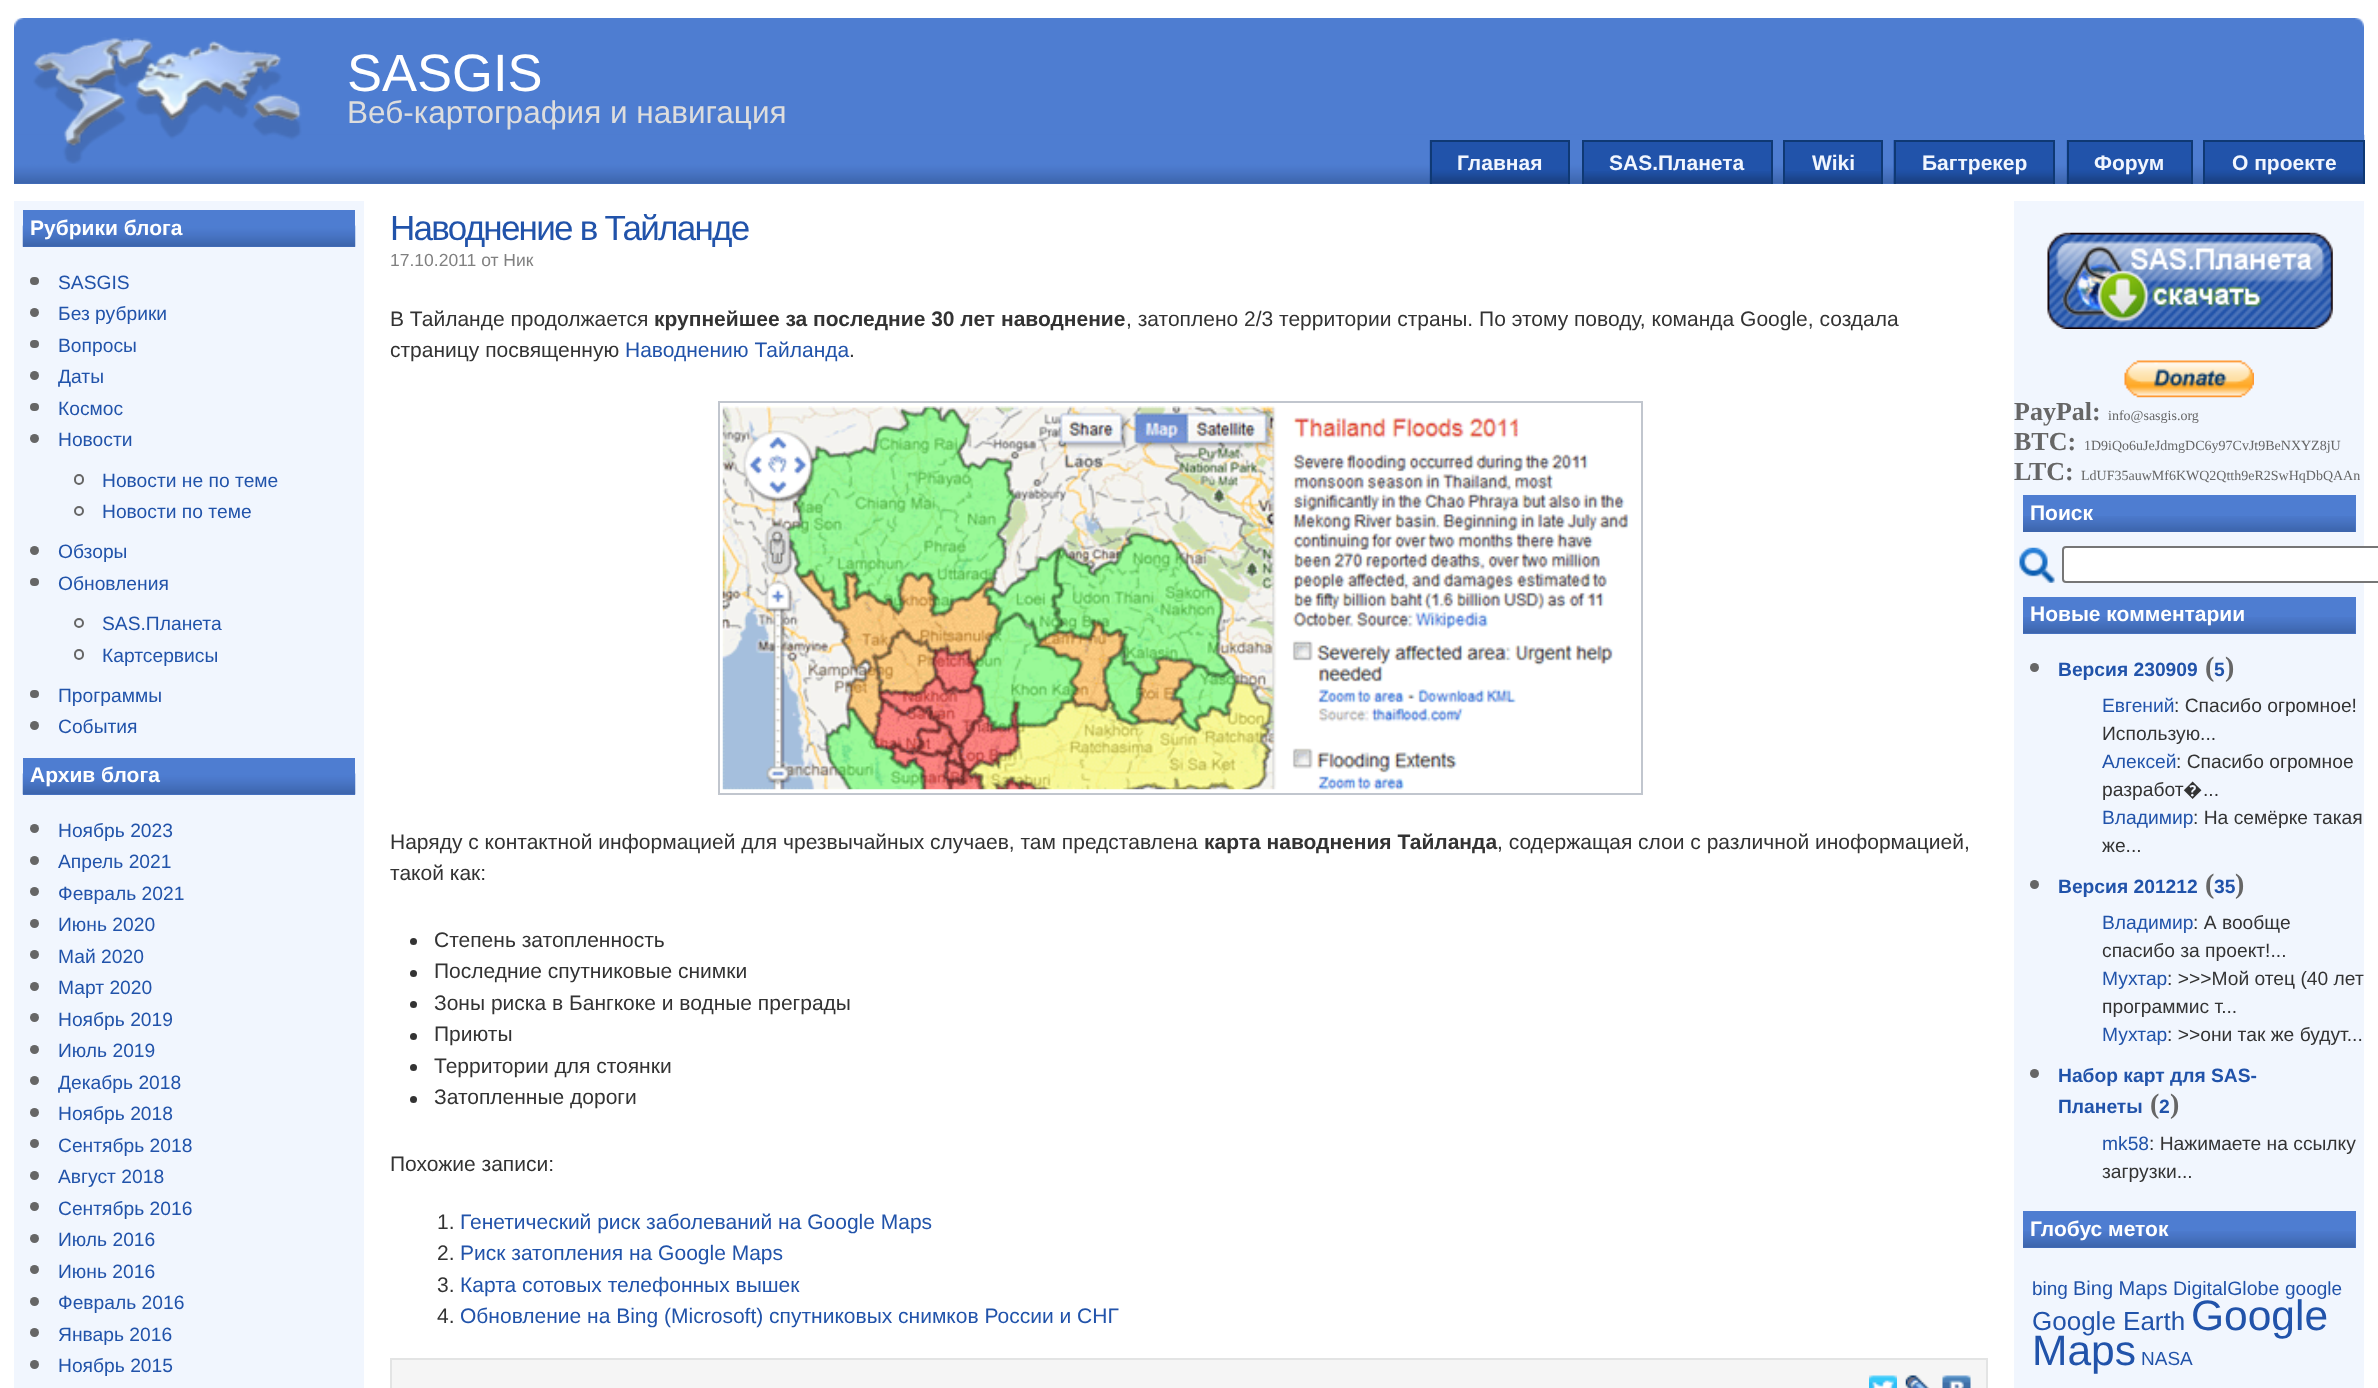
(async () => {
    const canvas = document.querySelector("canvas");
    canvas.width = 2378;
    canvas.height = 1388;
    const context = canvas.getContext("2d");
    context.miterLimit = 4;
    context.fontKerning = "normal";
    function write(s, x, y, font, color) {
        context.font = font;
        context.fillStyle = color;
        context.fillText(s, x, y);
    }
    function block(x, y, w, h, color) {
        context.fillStyle = color;
        context.fillRect(x, y, w, h);
    }
    function card(x, y, w, h, r, color) {
        context.fillStyle = color;
        context.beginPath();
        context.roundRect(x, y, w, h, r);
        context.fill();
    }
    async function photo(src, x, y, w, h) {
        const img = new Image();
        img.src = src;
        await img.decode();
        context.drawImage(img, x, y, w, h);
    }

    block(0, 0, 2378, 1388, "rgb(255, 255, 255)");
    block(14, 18, 2350, 166, "rgb(78, 125, 209)");
    await photo("media/1.png", 14, 134, 2351, 50);
    await photo("media/2.png", 14, 18, 10, 10);
    await photo("media/3.png", 2355, 18, 9, 10);
    await photo("media/4.png", 33, 37, 269, 127);
    write("SASGIS", 347, 91, "52.5px Liberation Sans", "rgb(255, 255, 255)");
    write("Веб-картография и навигация", 347, 123, "31.5px Liberation Sans", "rgb(221, 221, 221)");
    await photo("media/5.png", 1429, 140, 139, 44);
    block(1785, 142, 96, 42, "rgb(33, 83, 170)");
    write("Wiki", 1812, 170, "bold 21px Liberation Sans", "rgb(241, 246, 254)");
    block(1783, 140, 100, 2, "rgb(15, 57, 116)");
    block(1881, 140, 2, 44, "rgb(15, 57, 116)");
    block(1783, 140, 2, 44, "rgb(15, 57, 116)");
    await photo("media/6.png", 1893, 140, 160, 44);
    await photo("media/7.png", 2066, 140, 125, 44);
    await photo("media/8.png", 2205, 142, 158, 42);
    write("Главная", 1457, 170, "bold 21px Liberation Sans", "rgb(241, 246, 254)");
    block(1430, 140, 140, 2, "rgb(15, 57, 116)");
    block(1568, 140, 2, 44, "rgb(15, 57, 116)");
    block(1430, 140, 2, 44, "rgb(15, 57, 116)");
    block(1584, 142, 187, 42, "rgb(33, 83, 170)");
    write("SAS.Планета", 1609, 170, "bold 21px Liberation Sans", "rgb(241, 246, 254)");
    block(1582, 140, 191, 2, "rgb(15, 57, 116)");
    block(1771, 140, 2, 44, "rgb(15, 57, 116)");
    block(1582, 140, 2, 44, "rgb(15, 57, 116)");
    write("Багтрекер", 1922, 170, "bold 21px Liberation Sans", "rgb(241, 246, 254)");
    block(1894, 140, 161, 2, "rgb(15, 57, 116)");
    block(2053, 140, 2, 44, "rgb(15, 57, 116)");
    block(1894, 140, 2, 44, "rgb(15, 57, 116)");
    write("Форум", 2094, 170, "bold 21px Liberation Sans", "rgb(241, 246, 254)");
    block(2067, 140, 126, 2, "rgb(15, 57, 116)");
    block(2191, 140, 2, 44, "rgb(15, 57, 116)");
    block(2067, 140, 2, 44, "rgb(15, 57, 116)");
    write("О проекте", 2232, 170, "bold 21px Liberation Sans", "rgb(241, 246, 254)");
    block(2203, 140, 161, 2, "rgb(15, 57, 116)");
    block(2363, 140, 2, 44, "rgb(15, 57, 116)");
    block(2203, 140, 2, 44, "rgb(15, 57, 116)");
    await photo("media/9.png", 1584, 171, 187, 13);
    await photo("media/10.png", 1785, 171, 96, 13);
    block(14, 201, 350, 1187, "rgb(241, 246, 254)");
    block(23, 210, 332, 37, "rgb(78, 125, 209)");
    await photo("media/11.png", 22, 225, 334, 22);
    write("Рубрики блога", 30, 235, "bold 21px Liberation Sans", "rgb(255, 255, 255)");
    card(30, 277, 9, 8, 4, "rgb(102, 102, 102)");
    write("SASGIS", 58, 289, "19.25px Liberation Sans", "rgb(33, 83, 170)");
    context.fillStyle = "rgb(102, 102, 102)";
    context.beginPath();
    context.arc(34.5, 312.5, 4.5, 0, Math.PI * 2);
    context.fill();
    write("Без рубрики", 58, 320, "19.25px Liberation Sans", "rgb(33, 83, 170)");
    card(30, 340, 9, 8, 4, "rgb(102, 102, 102)");
    write("Вопросы", 58, 352, "19.25px Liberation Sans", "rgb(33, 83, 170)");
    context.fillStyle = "rgb(102, 102, 102)";
    context.beginPath();
    context.arc(34.5, 375.5, 4.5, 0, Math.PI * 2);
    context.fill();
    write("Даты", 58, 383, "19.25px Liberation Sans", "rgb(33, 83, 170)");
    card(30, 403, 9, 8, 4, "rgb(102, 102, 102)");
    write("Космос", 58, 415, "19.25px Liberation Sans", "rgb(33, 83, 170)");
    context.fillStyle = "rgb(102, 102, 102)";
    context.beginPath();
    context.arc(34.5, 438.5, 4.5, 0, Math.PI * 2);
    context.fill();
    write("Новости", 58, 446, "19.25px Liberation Sans", "rgb(33, 83, 170)");
    context.beginPath();
    context.roundRect(75, 475, 8, 9, 4);
    context.strokeStyle = "rgb(102, 102, 102)";
    context.lineWidth = 2;
    context.stroke();
    write("Новости не по теме", 102, 487, "19.25px Liberation Sans", "rgb(33, 83, 170)");
    context.beginPath();
    context.arc(79, 511, 4, 0, Math.PI * 2);
    context.stroke();
    write("Новости по теме", 102, 518, "19.25px Liberation Sans", "rgb(33, 83, 170)");
    context.fillStyle = "rgb(102, 102, 102)";
    context.beginPath();
    context.arc(34.5, 550.5, 4.5, 0, Math.PI * 2);
    context.fill();
    write("Обзоры", 58, 558, "19.25px Liberation Sans", "rgb(33, 83, 170)");
    card(30, 578, 9, 8, 4, "rgb(102, 102, 102)");
    write("Обновления", 58, 590, "19.25px Liberation Sans", "rgb(33, 83, 170)");
    context.beginPath();
    context.arc(79, 623, 4, 0, Math.PI * 2);
    context.stroke();
    write("SAS.Планета", 102, 630, "19.25px Liberation Sans", "rgb(33, 83, 170)");
    context.beginPath();
    context.roundRect(75, 650, 8, 9, 4);
    context.stroke();
    write("Картсервисы", 102, 662, "19.25px Liberation Sans", "rgb(33, 83, 170)");
    card(30, 690, 9, 8, 4, "rgb(102, 102, 102)");
    write("Программы", 58, 702, "19.25px Liberation Sans", "rgb(33, 83, 170)");
    context.fillStyle = "rgb(102, 102, 102)";
    context.beginPath();
    context.arc(34.5, 725.5, 4.5, 0, Math.PI * 2);
    context.fill();
    write("События", 58, 733, "19.25px Liberation Sans", "rgb(33, 83, 170)");
    block(23, 758, 332, 37, "rgb(78, 125, 209)");
    await photo("media/12.png", 22, 773, 334, 22);
    write("Архив блога", 30, 782, "bold 21px Liberation Sans", "rgb(255, 255, 255)");
    context.fillStyle = "rgb(102, 102, 102)";
    context.beginPath();
    context.arc(34.5, 828.5, 4.5, 0, Math.PI * 2);
    context.fill();
    write("Ноябрь 2023", 58, 837, "19.25px Liberation Sans", "rgb(33, 83, 170)");
    context.fillStyle = "rgb(102, 102, 102)";
    context.beginPath();
    context.arc(34.5, 860.5, 4.5, 0, Math.PI * 2);
    context.fill();
    write("Апрель 2021", 58, 868, "19.25px Liberation Sans", "rgb(33, 83, 170)");
    context.fillStyle = "rgb(102, 102, 102)";
    context.beginPath();
    context.arc(34.5, 891.5, 4.5, 0, Math.PI * 2);
    context.fill();
    write("Февраль 2021", 58, 900, "19.25px Liberation Sans", "rgb(33, 83, 170)");
    context.fillStyle = "rgb(102, 102, 102)";
    context.beginPath();
    context.arc(34.5, 923.5, 4.5, 0, Math.PI * 2);
    context.fill();
    write("Июнь 2020", 58, 931, "19.25px Liberation Sans", "rgb(33, 83, 170)");
    context.fillStyle = "rgb(102, 102, 102)";
    context.beginPath();
    context.arc(34.5, 954.5, 4.5, 0, Math.PI * 2);
    context.fill();
    write("Май 2020", 58, 963, "19.25px Liberation Sans", "rgb(33, 83, 170)");
    context.fillStyle = "rgb(102, 102, 102)";
    context.beginPath();
    context.arc(34.5, 986.5, 4.5, 0, Math.PI * 2);
    context.fill();
    write("Март 2020", 58, 994, "19.25px Liberation Sans", "rgb(33, 83, 170)");
    context.fillStyle = "rgb(102, 102, 102)";
    context.beginPath();
    context.arc(34.5, 1017.5, 4.5, 0, Math.PI * 2);
    context.fill();
    write("Ноябрь 2019", 58, 1026, "19.25px Liberation Sans", "rgb(33, 83, 170)");
    context.fillStyle = "rgb(102, 102, 102)";
    context.beginPath();
    context.arc(34.5, 1049.5, 4.5, 0, Math.PI * 2);
    context.fill();
    write("Июль 2019", 58, 1057, "19.25px Liberation Sans", "rgb(33, 83, 170)");
    context.fillStyle = "rgb(102, 102, 102)";
    context.beginPath();
    context.arc(34.5, 1080.5, 4.5, 0, Math.PI * 2);
    context.fill();
    write("Декабрь 2018", 58, 1089, "19.25px Liberation Sans", "rgb(33, 83, 170)");
    context.fillStyle = "rgb(102, 102, 102)";
    context.beginPath();
    context.arc(34.5, 1112.5, 4.5, 0, Math.PI * 2);
    context.fill();
    write("Ноябрь 2018", 58, 1120, "19.25px Liberation Sans", "rgb(33, 83, 170)");
    context.fillStyle = "rgb(102, 102, 102)";
    context.beginPath();
    context.arc(34.5, 1143.5, 4.5, 0, Math.PI * 2);
    context.fill();
    write("Сентябрь 2018", 58, 1152, "19.25px Liberation Sans", "rgb(33, 83, 170)");
    context.fillStyle = "rgb(102, 102, 102)";
    context.beginPath();
    context.arc(34.5, 1175.5, 4.5, 0, Math.PI * 2);
    context.fill();
    write("Август 2018", 58, 1183, "19.25px Liberation Sans", "rgb(33, 83, 170)");
    context.fillStyle = "rgb(102, 102, 102)";
    context.beginPath();
    context.arc(34.5, 1206.5, 4.5, 0, Math.PI * 2);
    context.fill();
    write("Сентябрь 2016", 58, 1215, "19.25px Liberation Sans", "rgb(33, 83, 170)");
    context.fillStyle = "rgb(102, 102, 102)";
    context.beginPath();
    context.arc(34.5, 1238.5, 4.5, 0, Math.PI * 2);
    context.fill();
    write("Июль 2016", 58, 1246, "19.25px Liberation Sans", "rgb(33, 83, 170)");
    context.fillStyle = "rgb(102, 102, 102)";
    context.beginPath();
    context.arc(34.5, 1269.5, 4.5, 0, Math.PI * 2);
    context.fill();
    write("Июнь 2016", 58, 1278, "19.25px Liberation Sans", "rgb(33, 83, 170)");
    context.fillStyle = "rgb(102, 102, 102)";
    context.beginPath();
    context.arc(34.5, 1301.5, 4.5, 0, Math.PI * 2);
    context.fill();
    write("Февраль 2016", 58, 1309, "19.25px Liberation Sans", "rgb(33, 83, 170)");
    context.fillStyle = "rgb(102, 102, 102)";
    context.beginPath();
    context.arc(34.5, 1332.5, 4.5, 0, Math.PI * 2);
    context.fill();
    write("Январь 2016", 58, 1341, "19.25px Liberation Sans", "rgb(33, 83, 170)");
    context.fillStyle = "rgb(102, 102, 102)";
    context.beginPath();
    context.arc(34.5, 1364.5, 4.5, 0, Math.PI * 2);
    context.fill();
    write("Ноябрь 2015", 58, 1372, "19.25px Liberation Sans", "rgb(33, 83, 170)");
    context.letterSpacing = "-1.75px";
    write("Наводнение в Тайланде", 390, 240, "35px Liberation Sans", "rgb(33, 83, 170)");
    context.letterSpacing = "0px";
    write("17.10.2011 от Ник", 390, 266, "17.5px Liberation Sans", "rgb(128, 128, 128)");
    write("В Тайланде продолжается", 390, 326, "21px Liberation Sans", "rgb(51, 51, 51)");
    write("крупнейшее за последние 30 лет наводнение", 654, 326, "bold 21px Liberation Sans", "rgb(51, 51, 51)");
    write(", затоплено 2/3 территории страны. По этому поводу, команда Google, создала", 1126, 326, "21px Liberation Sans", "rgb(51, 51, 51)");
    write("страницу посвященную", 390, 357, "21px Liberation Sans", "rgb(51, 51, 51)");
    write("Наводнению Тайланда", 625, 357, "21px Liberation Sans", "rgb(33, 83, 170)");
    write(".", 849, 357, "21px Liberation Sans", "rgb(51, 51, 51)");
    context.strokeStyle = "rgb(193, 198, 206)";
    context.strokeRect(719, 402, 923, 392);
    await photo("media/13.png", 722, 406, 908, 384);
    write("Наряду с контактной информацией для чрезвычайных случаев, там представлена", 390, 849, "21px Liberation Sans", "rgb(51, 51, 51)");
    write("карта наводнения Тайланда", 1204, 849, "bold 21px Liberation Sans", "rgb(51, 51, 51)");
    write(", содержащая слои с различной иноформацией,", 1497, 849, "21px Liberation Sans", "rgb(51, 51, 51)");
    write("такой как:", 390, 880, "21px Liberation Sans", "rgb(51, 51, 51)");
    context.beginPath();
    context.arc(413.5, 941.5, 3.5, 0, Math.PI * 2);
    context.fill();
    write("Степень затопленность", 434, 947, "21px Liberation Sans", "rgb(51, 51, 51)");
    context.beginPath();
    context.arc(413.5, 973.5, 3.5, 0, Math.PI * 2);
    context.fill();
    write("Последние спутниковые снимки", 434, 978, "21px Liberation Sans", "rgb(51, 51, 51)");
    context.beginPath();
    context.arc(413.5, 1004.5, 3.5, 0, Math.PI * 2);
    context.fill();
    write("Зоны риска в Бангкоке и водные преграды", 434, 1010, "21px Liberation Sans", "rgb(51, 51, 51)");
    context.beginPath();
    context.arc(413.5, 1036.5, 3.5, 0, Math.PI * 2);
    context.fill();
    write("Приюты", 434, 1041, "21px Liberation Sans", "rgb(51, 51, 51)");
    context.beginPath();
    context.arc(413.5, 1067.5, 3.5, 0, Math.PI * 2);
    context.fill();
    write("Территории для стоянки", 434, 1073, "21px Liberation Sans", "rgb(51, 51, 51)");
    context.beginPath();
    context.arc(413.5, 1099.5, 3.5, 0, Math.PI * 2);
    context.fill();
    write("Затопленные дороги", 434, 1104, "21px Liberation Sans", "rgb(51, 51, 51)");
    write("Похожие записи:", 390, 1171, "21px Liberation Sans", "rgb(51, 51, 51)");
    write("1.", 437, 1229, "21px Liberation Sans", "rgb(51, 51, 51)");
    write("Генетический риск заболеваний на Google Maps", 460, 1229, "21px Liberation Sans", "rgb(33, 83, 170)");
    write("2.", 437, 1260, "21px Liberation Sans", "rgb(51, 51, 51)");
    write("Риск затопления на Google Maps", 460, 1260, "21px Liberation Sans", "rgb(33, 83, 170)");
    write("3.", 437, 1292, "21px Liberation Sans", "rgb(51, 51, 51)");
    write("Карта сотовых телефонных вышек", 460, 1292, "21px Liberation Sans", "rgb(33, 83, 170)");
    write("4.", 437, 1323, "21px Liberation Sans", "rgb(51, 51, 51)");
    write("Обновление на Bing (Microsoft) спутниковых снимков России и СНГ", 460, 1323, "21px Liberation Sans", "rgb(33, 83, 170)");
    context.fillStyle = "rgb(245, 245, 245)";
    context.beginPath();
    context.rect(391, 1359, 1596, 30);
    context.fill();
    context.strokeStyle = "rgb(227, 228, 228)";
    context.stroke();
    await photo("media/14.png", 1869, 1375, 28, 13);
    await photo("media/15.png", 1905, 1375, 25, 13);
    await photo("media/16.png", 1942, 1375, 29, 13);
    block(2014, 201, 350, 1187, "rgb(241, 246, 254)");
    await photo("media/17.png", 2047, 232, 286, 97);
    await photo("media/18.png", 2124, 360, 130, 38);
    write("PayPal:", 2014, 420, "bold 26px Liberation Serif", "rgb(102, 102, 102)");
    write("info@sasgis.org", 2108, 420, "14px Liberation Serif", "rgb(102, 102, 102)");
    write("BTC:", 2014, 450, "bold 26px Liberation Serif", "rgb(102, 102, 102)");
    write("1D9iQo6uJeJdmgDC6y97CvJt9BeNXYZ8jU", 2084, 450, "14px Liberation Serif", "rgb(102, 102, 102)");
    write("LTC:", 2014, 480, "bold 26px Liberation Serif", "rgb(102, 102, 102)");
    write("LdUF35auwMf6KWQ2Qtth9eR2SwHqDbQAAn", 2081, 480, "14px Liberation Serif", "rgb(102, 102, 102)");
    block(2023, 495, 333, 37, "rgb(78, 125, 209)");
    await photo("media/19.png", 2023, 516, 333, 16);
    write("Поиск", 2030, 520, "bold 21px Liberation Sans", "rgb(255, 255, 255)");
    await photo("media/20.png", 2019, 547, 36, 36);
    context.beginPath();
    context.roundRect(2063, 547, 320, 35, 3);
    context.fill();
    context.strokeStyle = "rgb(118, 118, 118)";
    context.stroke();
    block(2023, 597, 333, 37, "rgb(78, 125, 209)");
    await photo("media/21.png", 2023, 617, 333, 17);
    write("Новые комментарии", 2030, 621, "bold 21px Liberation Sans", "rgb(255, 255, 255)");
    context.fillStyle = "rgb(102, 102, 102)";
    context.beginPath();
    context.arc(2034.5, 667.5, 4.5, 0, Math.PI * 2);
    context.fill();
    write("Версия 230909", 2058, 676, "bold 19.25px Liberation Sans", "rgb(33, 83, 170)");
    write("(", 2205, 676, "bold 28px Liberation Serif", "rgb(102, 102, 102)");
    write("5", 2214, 676, "bold 19.25px Liberation Sans", "rgb(33, 83, 170)");
    write(")", 2225, 676, "bold 28px Liberation Serif", "rgb(102, 102, 102)");
    write("Евгений", 2102, 712, "19.25px Liberation Sans", "rgb(33, 83, 170)");
    write(": Спасибо огромное!", 2174, 712, "19.25px Liberation Sans", "rgb(51, 51, 51)");
    write("Использую...", 2102, 740, "19.25px Liberation Sans", "rgb(51, 51, 51)");
    write("Алексей", 2102, 768, "19.25px Liberation Sans", "rgb(33, 83, 170)");
    write(": Спасибо огромное", 2176, 768, "19.25px Liberation Sans", "rgb(51, 51, 51)");
    write("разработ", 2102, 796, "19.25px Liberation Sans", "rgb(51, 51, 51)");
    write("�", 2183, 796, "19.25px Noto Sans", "rgb(51, 51, 51)");
    write("...", 2203, 796, "19.25px Liberation Sans", "rgb(51, 51, 51)");
    write("Владимир", 2102, 824, "19.25px Liberation Sans", "rgb(33, 83, 170)");
    write(": На семёрке такая", 2193, 824, "19.25px Liberation Sans", "rgb(51, 51, 51)");
    write("же...", 2102, 852, "19.25px Liberation Sans", "rgb(51, 51, 51)");
    context.fillStyle = "rgb(102, 102, 102)";
    context.beginPath();
    context.arc(2034.5, 884.5, 4.5, 0, Math.PI * 2);
    context.fill();
    write("Версия 201212", 2058, 893, "bold 19.25px Liberation Sans", "rgb(33, 83, 170)");
    write("(", 2205, 893, "bold 28px Liberation Serif", "rgb(102, 102, 102)");
    write("35", 2214, 893, "bold 19.25px Liberation Sans", "rgb(33, 83, 170)");
    write(")", 2235, 893, "bold 28px Liberation Serif", "rgb(102, 102, 102)");
    write("Владимир", 2102, 929, "19.25px Liberation Sans", "rgb(33, 83, 170)");
    write(": А вообще", 2193, 929, "19.25px Liberation Sans", "rgb(51, 51, 51)");
    write("спасибо за проект!...", 2102, 957, "19.25px Liberation Sans", "rgb(51, 51, 51)");
    write("Мухтар", 2102, 985, "19.25px Liberation Sans", "rgb(33, 83, 170)");
    write(": >>>Мой отец (40 лет", 2167, 985, "19.25px Liberation Sans", "rgb(51, 51, 51)");
    write("программис т...", 2102, 1013, "19.25px Liberation Sans", "rgb(51, 51, 51)");
    write("Мухтар", 2102, 1041, "19.25px Liberation Sans", "rgb(33, 83, 170)");
    write(": >>они так же будут...", 2167, 1041, "19.25px Liberation Sans", "rgb(51, 51, 51)");
    context.fillStyle = "rgb(102, 102, 102)";
    context.beginPath();
    context.arc(2034.5, 1073.5, 4.5, 0, Math.PI * 2);
    context.fill();
    write("Набор карт для SAS-", 2058, 1082, "bold 19.25px Liberation Sans", "rgb(33, 83, 170)");
    write("Планеты", 2058, 1113, "bold 19.25px Liberation Sans", "rgb(33, 83, 170)");
    write("(", 2150, 1113, "bold 28px Liberation Serif", "rgb(102, 102, 102)");
    write("2", 2159, 1113, "bold 19.25px Liberation Sans", "rgb(33, 83, 170)");
    write(")", 2170, 1113, "bold 28px Liberation Serif", "rgb(102, 102, 102)");
    write("mk58", 2102, 1150, "19.25px Liberation Sans", "rgb(33, 83, 170)");
    write(": Нажимаете на ссылку", 2149, 1150, "19.25px Liberation Sans", "rgb(51, 51, 51)");
    write("загрузки...", 2102, 1178, "19.25px Liberation Sans", "rgb(51, 51, 51)");
    block(2023, 1211, 333, 37, "rgb(78, 125, 209)");
    await photo("media/22.png", 2023, 1231, 333, 17);
    write("Глобус меток", 2030, 1236, "bold 21px Liberation Sans", "rgb(255, 255, 255)");
    write("bing", 2032, 1295, "19px Liberation Sans", "rgb(33, 83, 170)");
    write("Bing Maps", 2073, 1295, "20px Liberation Sans", "rgb(33, 83, 170)");
    write("DigitalGlobe", 2173, 1295, "19.5px Liberation Sans", "rgb(33, 83, 170)");
    write("google", 2285, 1295, "19px Liberation Sans", "rgb(33, 83, 170)");
    write("Google Earth", 2032, 1330, "26px Liberation Sans", "rgb(33, 83, 170)");
    write("Google", 2191, 1330, "42.5px Liberation Sans", "rgb(33, 83, 170)");
    write("Maps", 2032, 1365, "42.5px Liberation Sans", "rgb(33, 83, 170)");
    write("NASA", 2141, 1365, "19px Liberation Sans", "rgb(33, 83, 170)");
})();
